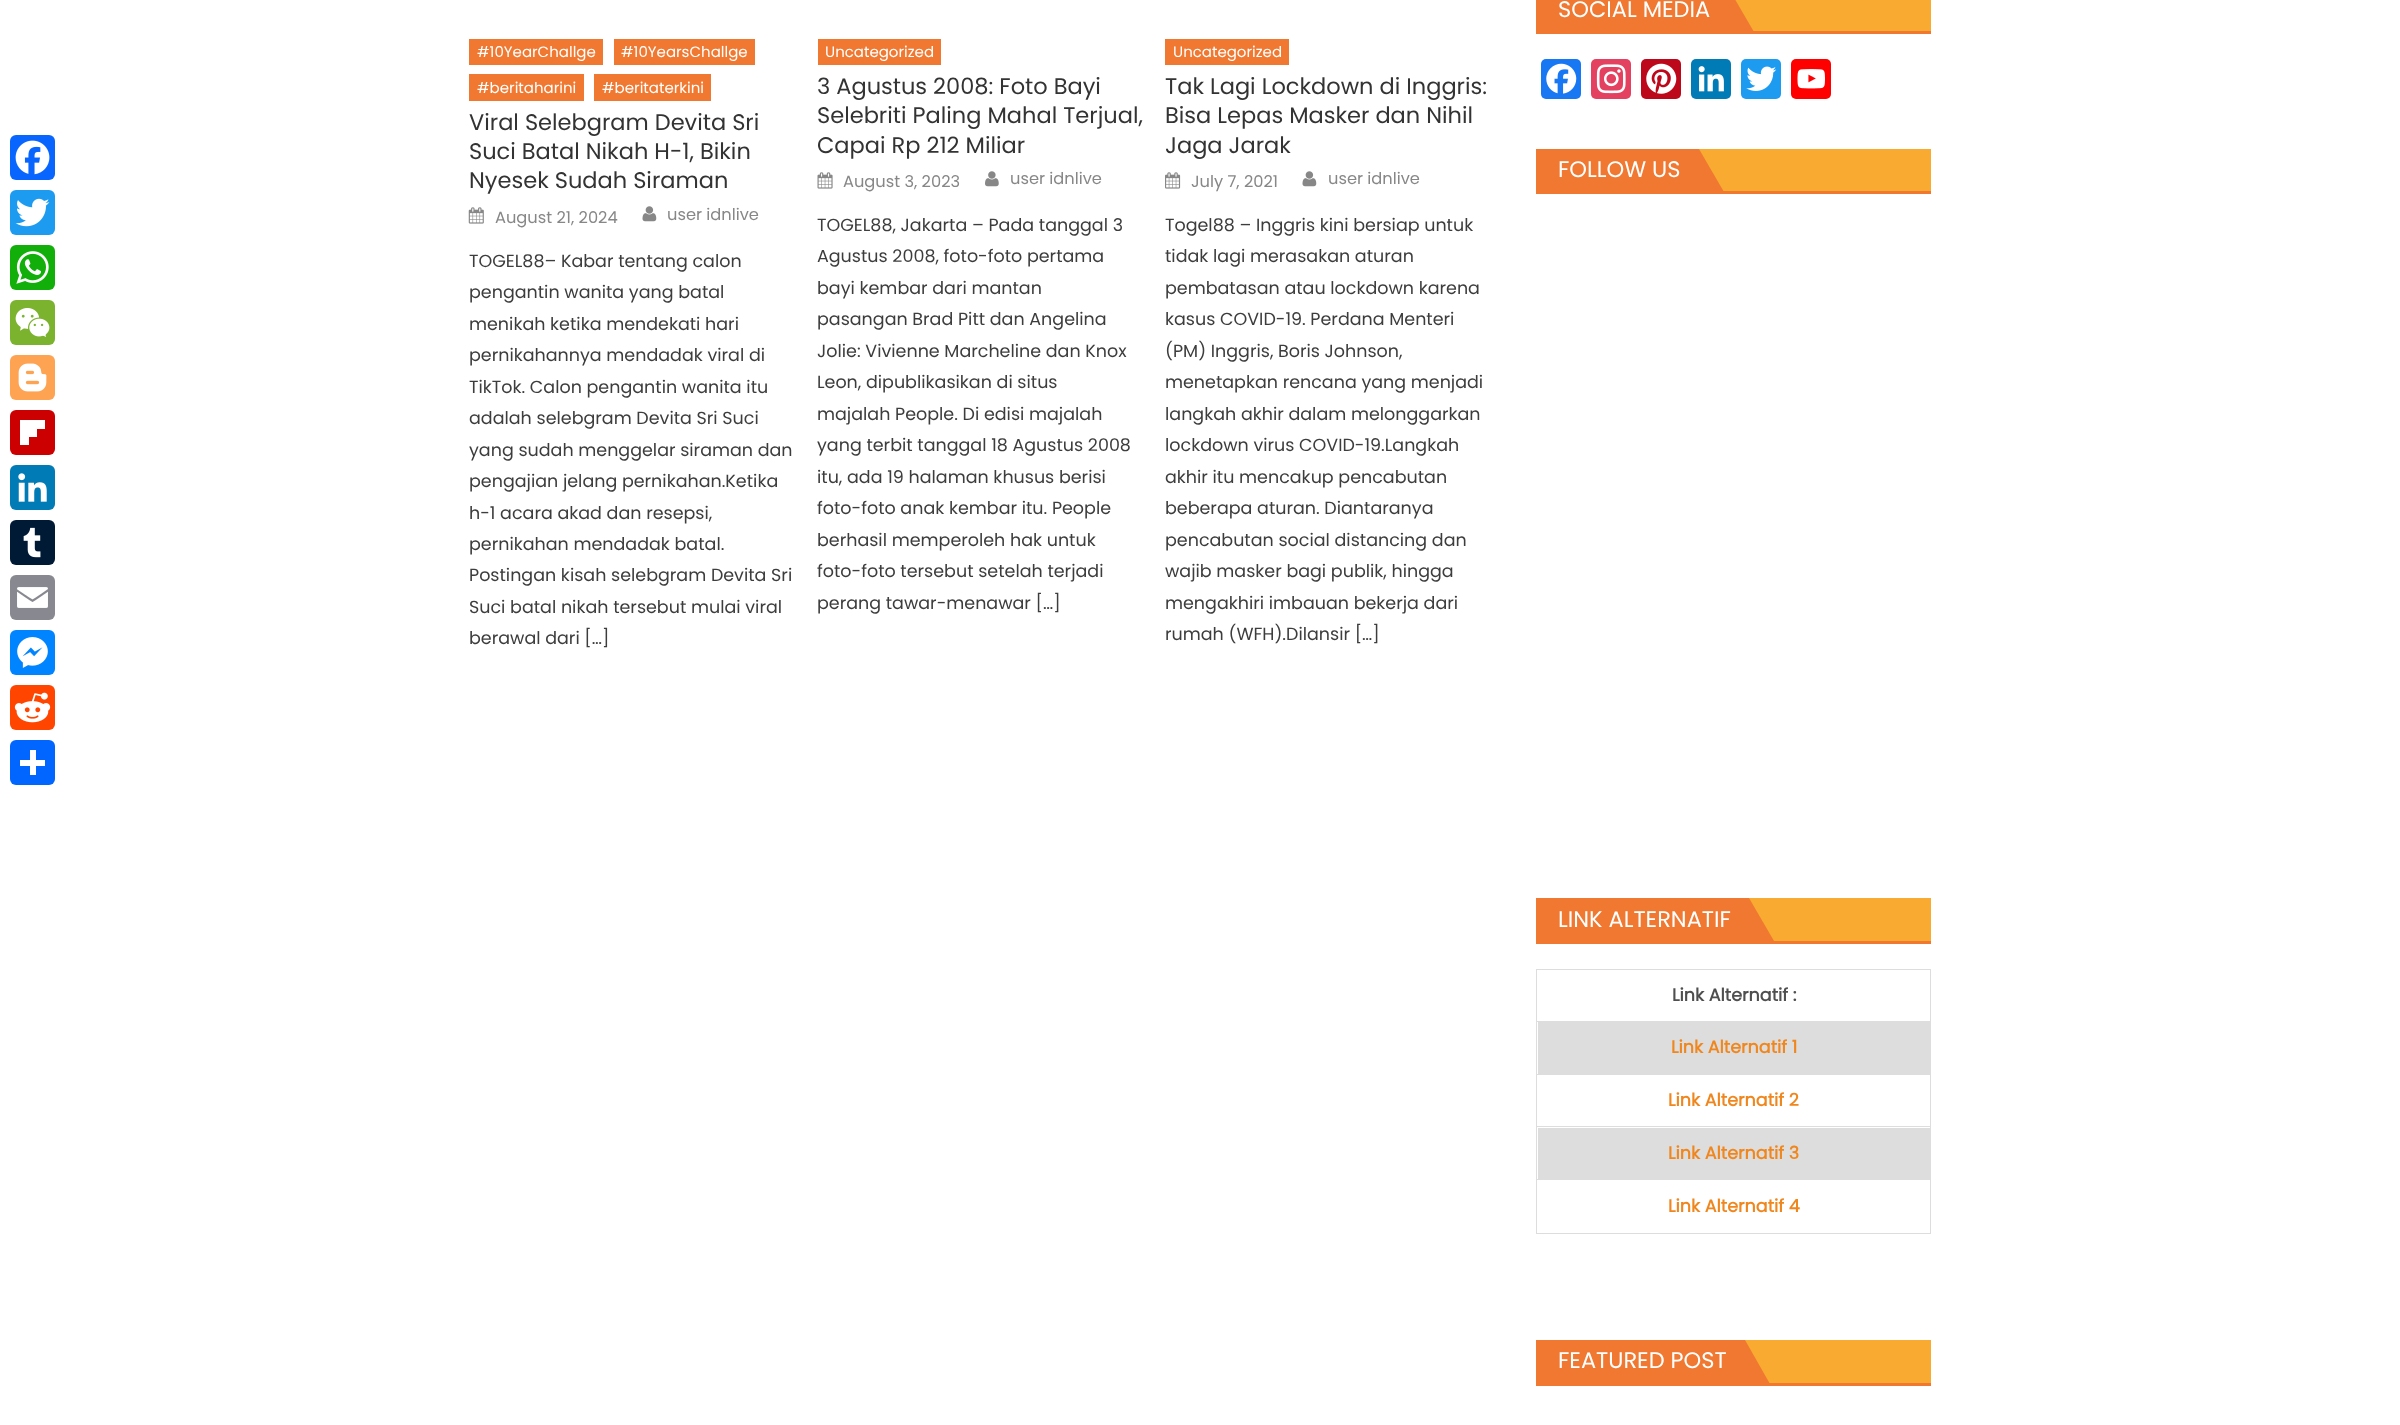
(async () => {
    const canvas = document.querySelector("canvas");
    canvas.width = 2400;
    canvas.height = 1425;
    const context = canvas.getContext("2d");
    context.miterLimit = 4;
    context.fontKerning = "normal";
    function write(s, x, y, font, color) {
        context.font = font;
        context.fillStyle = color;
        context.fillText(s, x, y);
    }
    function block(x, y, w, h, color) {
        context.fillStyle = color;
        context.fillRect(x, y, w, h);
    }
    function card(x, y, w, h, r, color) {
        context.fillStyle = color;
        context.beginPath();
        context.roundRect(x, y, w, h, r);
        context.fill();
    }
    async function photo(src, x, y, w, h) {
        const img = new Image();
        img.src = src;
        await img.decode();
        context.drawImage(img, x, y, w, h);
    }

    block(0, 0, 2400, 1425, "rgb(255, 255, 255)");
    card(10, 135, 45, 45, 6, "rgb(8, 102, 255)");
    await photo("media/1.png", 15, 140, 35, 35);
    card(10, 190, 45, 45, 6, "rgb(29, 155, 240)");
    await photo("media/2.png", 15, 198, 35, 29);
    card(10, 245, 45, 45, 6, "rgb(18, 175, 10)");
    await photo("media/3.png", 16, 251, 33, 33);
    card(10, 300, 45, 45, 6, "rgb(123, 179, 46)");
    await photo("media/4.png", 15, 307, 35, 30);
    card(10, 355, 45, 45, 6, "rgb(253, 163, 82)");
    await photo("media/5.png", 18, 363, 29, 29);
    card(10, 410, 45, 45, 6, "rgb(204, 0, 0)");
    block(29, 429, 8, 8, "rgb(255, 255, 255)");
    block(29, 420, 16, 9, "rgb(255, 255, 255)");
    block(20, 420, 9, 25, "rgb(255, 255, 255)");
    card(10, 465, 45, 45, 6, "rgb(0, 123, 181)");
    await photo("media/6.png", 18, 473, 29, 29);
    card(10, 520, 45, 45, 6, "rgb(0, 25, 53)");
    await photo("media/7.png", 23, 527, 18, 31);
    card(10, 575, 45, 45, 6, "rgb(136, 137, 144)");
    await photo("media/8.png", 17, 587, 31, 21);
    card(10, 630, 45, 45, 6, "rgb(0, 132, 255)");
    await photo("media/9.png", 17, 637, 31, 31);
    card(10, 685, 45, 45, 6, "rgb(255, 69, 0)");
    await photo("media/10.png", 14, 692, 37, 31);
    card(10, 740, 45, 45, 6, "rgb(1, 102, 255)");
    block(30, 750, 6, 25, "rgb(255, 255, 255)");
    block(20, 760, 25, 6, "rgb(255, 255, 255)");
    block(469, 39, 134, 26, "rgb(240, 120, 49)");
    write("#10YearChallge", 477, 57, "15px Poppins", "rgb(255, 255, 255)");
    block(614, 39, 141, 26, "rgb(240, 120, 49)");
    write("#10YearsChallge", 621, 57, "15px Poppins", "rgb(255, 255, 255)");
    block(469, 74, 115, 27, "rgb(240, 120, 49)");
    write("#beritaharini", 477, 93, "15px Poppins", "rgb(255, 255, 255)");
    block(594, 74, 117, 27, "rgb(240, 120, 49)");
    write("#beritaterkini", 602, 93, "15px Poppins", "rgb(255, 255, 255)");
    write("Viral Selebgram Devita Sri", 469, 130, "22.5px Poppins", "rgb(51, 51, 51)");
    write("Suci Batal Nikah H-1, Bikin", 469, 159, "22.5px Poppins", "rgb(51, 51, 51)");
    write("Nyesek Sudah Siraman", 469, 188, "22.5px Poppins", "rgb(51, 51, 51)");
    await photo("media/11.png", 468, 207, 16, 17);
    write("August 21, 2024", 495, 223, "16.25px Poppins", "rgb(135, 135, 135)");
    await photo("media/12.png", 642, 206, 15, 16);
    write("user idnlive", 667, 220, "16.25px Poppins", "rgb(135, 135, 135)");
    write("TOGEL88– Kabar tentang calon", 469, 267, "17.5px Poppins", "rgb(61, 61, 61)");
    write("pengantin wanita yang batal", 469, 298, "17.5px Poppins", "rgb(61, 61, 61)");
    write("menikah ketika mendekati hari", 469, 330, "17.5px Poppins", "rgb(61, 61, 61)");
    write("pernikahannya mendadak viral di", 469, 361, "17.5px Poppins", "rgb(61, 61, 61)");
    write("TikTok. Calon pengantin wanita itu", 469, 393, "17.5px Poppins", "rgb(61, 61, 61)");
    write("adalah selebgram Devita Sri Suci", 469, 424, "17.5px Poppins", "rgb(61, 61, 61)");
    write("yang sudah menggelar siraman dan", 469, 456, "17.5px Poppins", "rgb(61, 61, 61)");
    write("pengajian jelang pernikahan.Ketika", 469, 487, "17.5px Poppins", "rgb(61, 61, 61)");
    write("h-1 acara akad dan resepsi,", 469, 519, "17.5px Poppins", "rgb(61, 61, 61)");
    write("pernikahan mendadak batal.", 469, 550, "17.5px Poppins", "rgb(61, 61, 61)");
    write("Postingan kisah selebgram Devita Sri", 469, 581, "17.5px Poppins", "rgb(61, 61, 61)");
    write("Suci batal nikah tersebut mulai viral", 469, 613, "17.5px Poppins", "rgb(61, 61, 61)");
    write("berawal dari […]", 469, 644, "17.5px Poppins", "rgb(61, 61, 61)");
    block(818, 39, 123, 26, "rgb(240, 120, 49)");
    write("Uncategorized", 825, 57, "15px Poppins", "rgb(255, 255, 255)");
    write("3 Agustus 2008: Foto Bayi", 817, 94, "22.5px Poppins", "rgb(51, 51, 51)");
    write("Selebriti Paling Mahal Terjual,", 817, 123, "22.5px Poppins", "rgb(51, 51, 51)");
    write("Capai Rp 212 Miliar", 817, 153, "22.5px Poppins", "rgb(51, 51, 51)");
    await photo("media/13.png", 817, 172, 16, 17);
    write("August 3, 2023", 843, 187, "16.25px Poppins", "rgb(135, 135, 135)");
    await photo("media/14.png", 985, 171, 14, 16);
    write("user idnlive", 1010, 184, "16.25px Poppins", "rgb(135, 135, 135)");
    write("TOGEL88, Jakarta – Pada tanggal 3", 817, 231, "17.5px Poppins", "rgb(61, 61, 61)");
    write("Agustus 2008, foto-foto pertama", 817, 262, "17.5px Poppins", "rgb(61, 61, 61)");
    write("bayi kembar dari mantan", 817, 294, "17.5px Poppins", "rgb(61, 61, 61)");
    write("pasangan Brad Pitt dan Angelina", 817, 325, "17.5px Poppins", "rgb(61, 61, 61)");
    write("Jolie: Vivienne Marcheline dan Knox", 817, 357, "17.5px Poppins", "rgb(61, 61, 61)");
    write("Leon, dipublikasikan di situs", 817, 388, "17.5px Poppins", "rgb(61, 61, 61)");
    write("majalah People. Di edisi majalah", 817, 420, "17.5px Poppins", "rgb(61, 61, 61)");
    write("yang terbit tanggal 18 Agustus 2008", 817, 451, "17.5px Poppins", "rgb(61, 61, 61)");
    write("itu, ada 19 halaman khusus berisi", 817, 483, "17.5px Poppins", "rgb(61, 61, 61)");
    write("foto-foto anak kembar itu. People", 817, 514, "17.5px Poppins", "rgb(61, 61, 61)");
    write("berhasil memperoleh hak untuk", 817, 546, "17.5px Poppins", "rgb(61, 61, 61)");
    write("foto-foto tersebut setelah terjadi", 817, 577, "17.5px Poppins", "rgb(61, 61, 61)");
    write("perang tawar-menawar […]", 817, 609, "17.5px Poppins", "rgb(61, 61, 61)");
    block(1165, 39, 124, 26, "rgb(240, 120, 49)");
    write("Uncategorized", 1173, 57, "15px Poppins", "rgb(255, 255, 255)");
    write("Tak Lagi Lockdown di Inggris:", 1165, 94, "22.5px Poppins", "rgb(51, 51, 51)");
    write("Bisa Lepas Masker dan Nihil", 1165, 123, "22.5px Poppins", "rgb(51, 51, 51)");
    write("Jaga Jarak", 1165, 153, "22.5px Poppins", "rgb(51, 51, 51)");
    await photo("media/15.png", 1165, 172, 16, 17);
    write("July 7, 2021", 1191, 187, "16.25px Poppins", "rgb(135, 135, 135)");
    await photo("media/12.png", 1302, 171, 15, 16);
    write("user idnlive", 1328, 184, "16.25px Poppins", "rgb(135, 135, 135)");
    write("Togel88 – Inggris kini bersiap untuk", 1165, 231, "17.5px Poppins", "rgb(61, 61, 61)");
    write("tidak lagi merasakan aturan", 1165, 262, "17.5px Poppins", "rgb(61, 61, 61)");
    write("pembatasan atau lockdown karena", 1165, 294, "17.5px Poppins", "rgb(61, 61, 61)");
    write("kasus COVID-19. Perdana Menteri", 1165, 325, "17.5px Poppins", "rgb(61, 61, 61)");
    write("(PM) Inggris, Boris Johnson,", 1165, 357, "17.5px Poppins", "rgb(61, 61, 61)");
    write("menetapkan rencana yang menjadi", 1165, 388, "17.5px Poppins", "rgb(61, 61, 61)");
    write("langkah akhir dalam melonggarkan", 1165, 420, "17.5px Poppins", "rgb(61, 61, 61)");
    write("lockdown virus COVID-19.Langkah", 1165, 451, "17.5px Poppins", "rgb(61, 61, 61)");
    write("akhir itu mencakup pencabutan", 1165, 483, "17.5px Poppins", "rgb(61, 61, 61)");
    write("beberapa aturan. Diantaranya", 1165, 514, "17.5px Poppins", "rgb(61, 61, 61)");
    write("pencabutan social distancing dan", 1165, 546, "17.5px Poppins", "rgb(61, 61, 61)");
    write("wajib masker bagi publik, hingga", 1165, 577, "17.5px Poppins", "rgb(61, 61, 61)");
    write("mengakhiri imbauan bekerja dari", 1165, 609, "17.5px Poppins", "rgb(61, 61, 61)");
    write("rumah (WFH).Dilansir […]", 1165, 640, "17.5px Poppins", "rgb(61, 61, 61)");
    block(1735, 0, 196, 31, "rgb(248, 170, 49)");
    block(1536, 31, 395, 3, "rgb(240, 120, 49)");
    block(1536, 0, 3, 34, "rgb(240, 120, 49)");
    block(1539, 0, 190, 31, "rgb(240, 120, 49)");
    write("SOCIAL MEDIA", 1558, 17, "22.5px Poppins", "rgb(255, 255, 255)");
    context.fillStyle = "rgb(240, 120, 49)";
    context.beginPath();
    context.moveTo(1754, 32);
    context.lineTo(1729, 32);
    context.lineTo(1729, -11);
    context.closePath();
    context.fill();
    card(1541, 59, 40, 40, 5, "rgb(24, 119, 242)");
    await photo("media/16.png", 1546, 63, 31, 31);
    card(1591, 59, 40, 40, 5, "rgb(228, 64, 95)");
    await photo("media/17.png", 1596, 64, 30, 30);
    card(1641, 59, 40, 40, 5, "rgb(189, 8, 28)");
    await photo("media/18.png", 1646, 63, 31, 31);
    card(1691, 59, 40, 40, 5, "rgb(0, 123, 181)");
    await photo("media/19.png", 1698, 66, 26, 26);
    card(1741, 59, 40, 40, 5, "rgb(29, 155, 240)");
    await photo("media/20.png", 1746, 66, 31, 25);
    card(1791, 59, 40, 40, 5, "rgb(255, 0, 0)");
    await photo("media/21.png", 1797, 69, 28, 20);
    block(1699, 149, 232, 42, "rgb(248, 170, 49)");
    block(1536, 191, 395, 3, "rgb(240, 120, 49)");
    block(1536, 149, 3, 45, "rgb(240, 120, 49)");
    block(1539, 149, 160, 42, "rgb(240, 120, 49)");
    write("FOLLOW US", 1558, 177, "22.5px Poppins", "rgb(255, 255, 255)");
    context.fillStyle = "rgb(240, 120, 49)";
    context.beginPath();
    context.moveTo(1724, 192);
    context.lineTo(1699, 192);
    context.lineTo(1699, 149);
    context.closePath();
    context.fill();
    block(1749, 898, 182, 43, "rgb(248, 170, 49)");
    block(1536, 941, 395, 3, "rgb(240, 120, 49)");
    block(1536, 898, 3, 46, "rgb(240, 120, 49)");
    block(1539, 898, 210, 43, "rgb(240, 120, 49)");
    write("LINK ALTERNATIF", 1558, 927, "22.5px Poppins", "rgb(255, 255, 255)");
    context.fillStyle = "rgb(240, 120, 49)";
    context.beginPath();
    context.moveTo(1774, 941);
    context.lineTo(1749, 941);
    context.lineTo(1749, 898);
    context.closePath();
    context.fill();
    block(1536, 969, 395, 1, "rgb(221, 221, 221)");
    block(1538, 1022, 393, 52, "rgb(221, 221, 221)");
    block(1536, 1021, 395, 1, "rgb(221, 221, 221)");
    block(1930, 969, 1, 54, "rgb(221, 221, 221)");
    block(1536, 1074, 395, 1, "rgb(221, 221, 221)");
    block(1536, 1126, 395, 1, "rgb(221, 221, 221)");
    block(1536, 1179, 395, 1, "rgb(221, 221, 221)");
    block(1930, 1179, 1, 55, "rgb(221, 221, 221)");
    block(1536, 1233, 395, 1, "rgb(221, 221, 221)");
    block(1536, 1179, 1, 55, "rgb(221, 221, 221)");
    block(1536, 1126, 1, 54, "rgb(221, 221, 221)");
    block(1536, 1074, 1, 54, "rgb(221, 221, 221)");
    block(1536, 1021, 1, 54, "rgb(221, 221, 221)");
    block(1536, 969, 1, 54, "rgb(221, 221, 221)");
    write("Link Alternatif :", 1672, 1001, "bold 17.5px Poppins", "rgb(79, 79, 79)");
    write("Link Alternatif 1", 1671, 1053, "bold 17.5px Poppins", "rgb(240, 135, 30)");
    block(1930, 1126, 1, 54, "rgb(221, 221, 221)");
    block(1930, 1074, 1, 54, "rgb(221, 221, 221)");
    write("Link Alternatif 2", 1668, 1106, "bold 17.5px Poppins", "rgb(240, 135, 30)");
    block(1538, 1128, 392, 51, "rgb(221, 221, 221)");
    write("Link Alternatif 3", 1668, 1159, "bold 17.5px Poppins", "rgb(240, 135, 30)");
    write("Link Alternatif 4", 1668, 1212, "bold 17.5px Poppins", "rgb(240, 135, 30)");
    block(1745, 1340, 186, 43, "rgb(248, 170, 49)");
    block(1536, 1383, 395, 3, "rgb(240, 120, 49)");
    block(1536, 1340, 3, 45, "rgb(240, 120, 49)");
    block(1539, 1340, 206, 43, "rgb(240, 120, 49)");
    write("FEATURED POST", 1558, 1368, "22.5px Poppins", "rgb(255, 255, 255)");
    context.fillStyle = "rgb(240, 120, 49)";
    context.beginPath();
    context.moveTo(1770, 1384);
    context.lineTo(1745, 1384);
    context.lineTo(1745, 1340);
    context.closePath();
    context.fill();
})();
